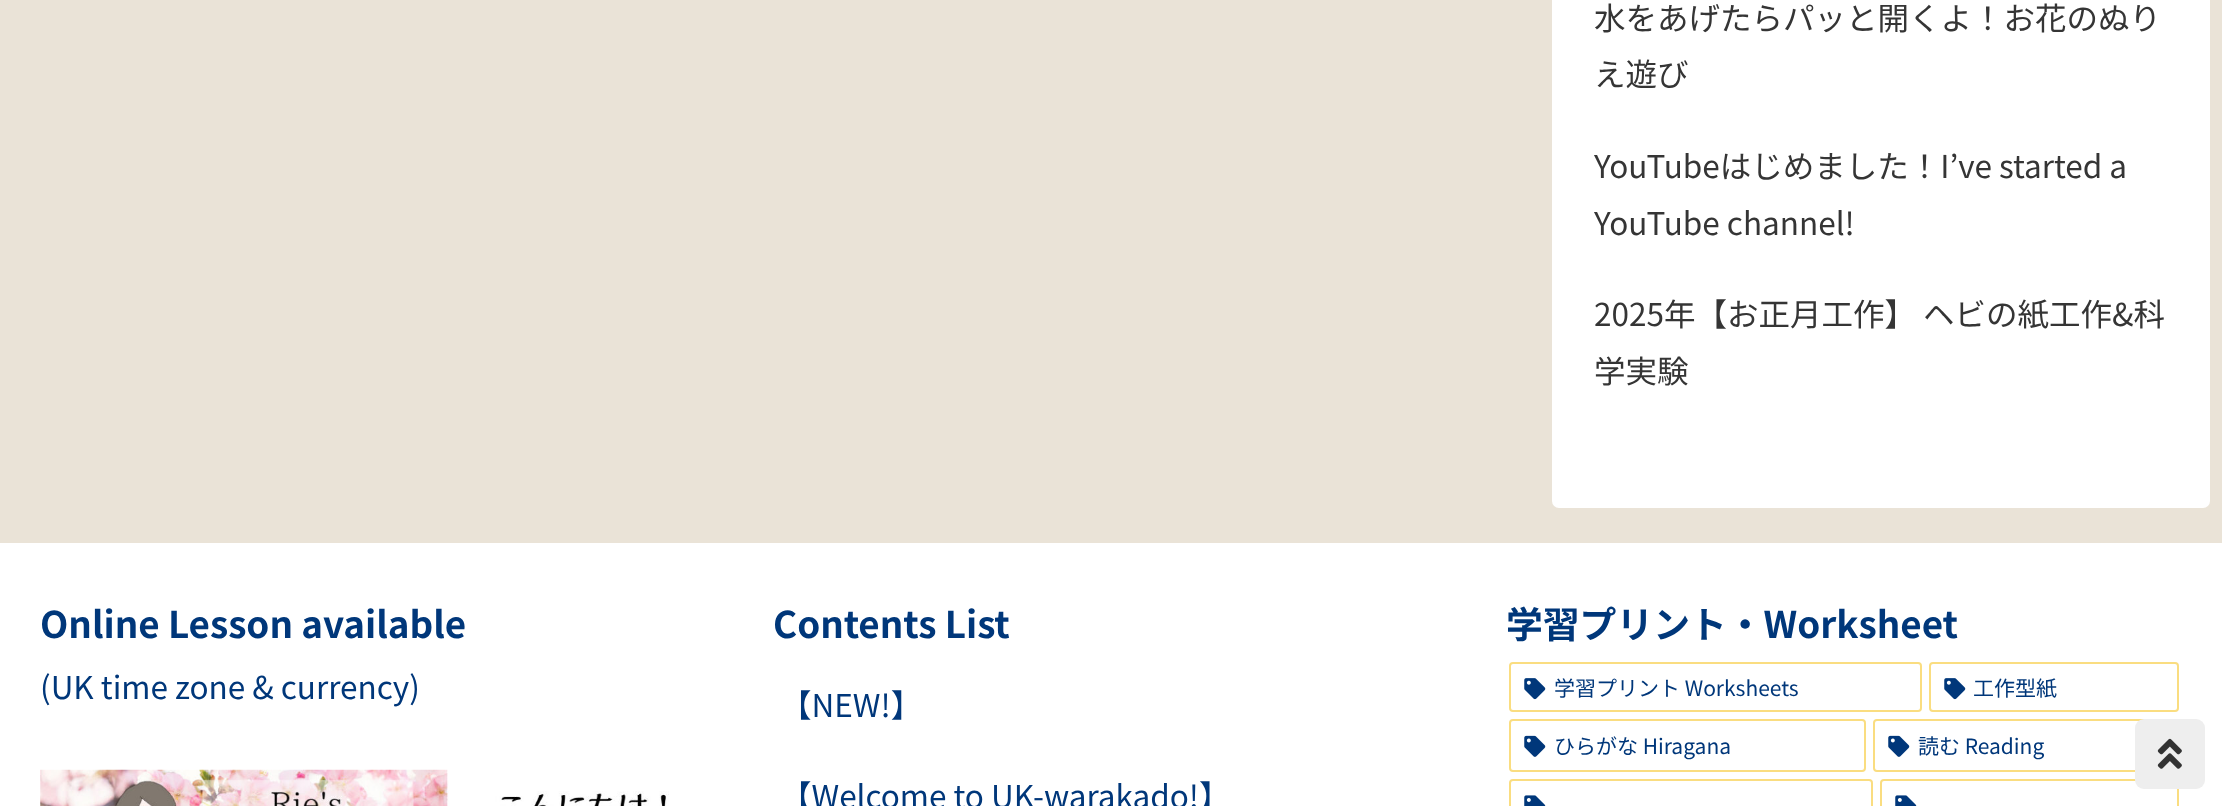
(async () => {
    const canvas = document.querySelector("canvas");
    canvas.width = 2222;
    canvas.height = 806;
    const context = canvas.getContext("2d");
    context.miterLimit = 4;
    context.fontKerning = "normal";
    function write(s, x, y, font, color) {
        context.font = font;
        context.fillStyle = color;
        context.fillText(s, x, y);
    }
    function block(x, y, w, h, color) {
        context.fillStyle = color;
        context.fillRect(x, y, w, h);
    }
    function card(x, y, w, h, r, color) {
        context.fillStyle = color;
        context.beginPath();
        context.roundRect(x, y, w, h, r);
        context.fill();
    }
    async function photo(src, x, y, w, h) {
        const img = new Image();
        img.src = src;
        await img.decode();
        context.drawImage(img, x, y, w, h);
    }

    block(0, 0, 2222, 806, "rgb(234, 227, 215)");
    card(1552, -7, 658, 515, 7, "rgb(255, 255, 255)");
    write("水をあげたらパッと開くよ！お花のぬり", 1594, 30, "31.5px Noto Sans JP", "rgb(53, 53, 53)");
    write("え遊び", 1594, 86, "31.5px Noto Sans JP", "rgb(53, 53, 53)");
    write("YouTubeはじめました！I’ve started a", 1594, 178, "31.5px Noto Sans JP", "rgb(53, 53, 53)");
    write("YouTube channel!", 1594, 235, "31.5px Noto Sans JP", "rgb(53, 53, 53)");
    write("2025年【お正月工作】 ヘビの紙工作&科", 1594, 326, "31.5px Noto Sans JP", "rgb(53, 53, 53)");
    write("学実験", 1594, 383, "31.5px Noto Sans JP", "rgb(53, 53, 53)");
    block(0, 543, 2222, 263, "rgb(255, 255, 255)");
    write("Online Lesson available", 40, 638, "bold 36.8px Noto Sans JP", "rgb(0, 55, 122)");
    write("(UK time zone & currency)", 40, 699, "31.5px Noto Sans JP", "rgb(0, 55, 122)");
    await photo("media/1.png", 40, 769, 629, 37);
    write("Contents List", 773, 638, "bold 36.8px Noto Sans JP", "rgb(0, 55, 122)");
    write("【NEW!】", 780, 717, "31.5px Noto Sans JP", "rgb(0, 55, 122)");
    write("【Welcome to UK-warakado!】", 780, 808, "31.5px Noto Sans JP", "rgb(0, 55, 122)");
    write("学習プリント・Worksheet", 1506, 638, "bold 36.8px Noto Sans JP", "rgb(0, 55, 122)");
    context.beginPath();
    context.roundRect(1510, 663, 411, 48, 3);
    context.strokeStyle = "rgb(250, 221, 128)";
    context.lineWidth = 2;
    context.stroke();
    await photo("media/2.png", 1524, 678, 22, 22);
    write("学習プリント Worksheets", 1554, 696, "21px Noto Sans JP", "rgb(0, 55, 122)");
    context.beginPath();
    context.roundRect(1930, 663, 248, 48, 3);
    context.stroke();
    await photo("media/2.png", 1944, 678, 22, 22);
    write("工作型紙", 1973, 696, "21px Noto Sans JP", "rgb(0, 55, 122)");
    context.beginPath();
    context.roundRect(1510, 720, 355, 51, 3);
    context.stroke();
    await photo("media/3.png", 1524, 735, 22, 22);
    write("ひらがな Hiragana", 1554, 754, "21px Noto Sans JP", "rgb(0, 55, 122)");
    context.beginPath();
    context.roundRect(1874, 720, 304, 51, 3);
    context.stroke();
    await photo("media/3.png", 1888, 735, 22, 22);
    write("読む Reading", 1918, 754, "21px Noto Sans JP", "rgb(0, 55, 122)");
    context.beginPath();
    context.roundRect(1510, 780, 362, 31, 3);
    context.stroke();
    await photo("media/4.png", 1524, 795, 22, 11);
    context.beginPath();
    context.roundRect(1881, 780, 297, 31, 3);
    context.stroke();
    await photo("media/4.png", 1895, 795, 22, 11);
    card(2135, 719, 70, 70, 9, "rgb(238, 238, 238)");
    await photo("media/5.png", 2157, 738, 25, 31);
})();
